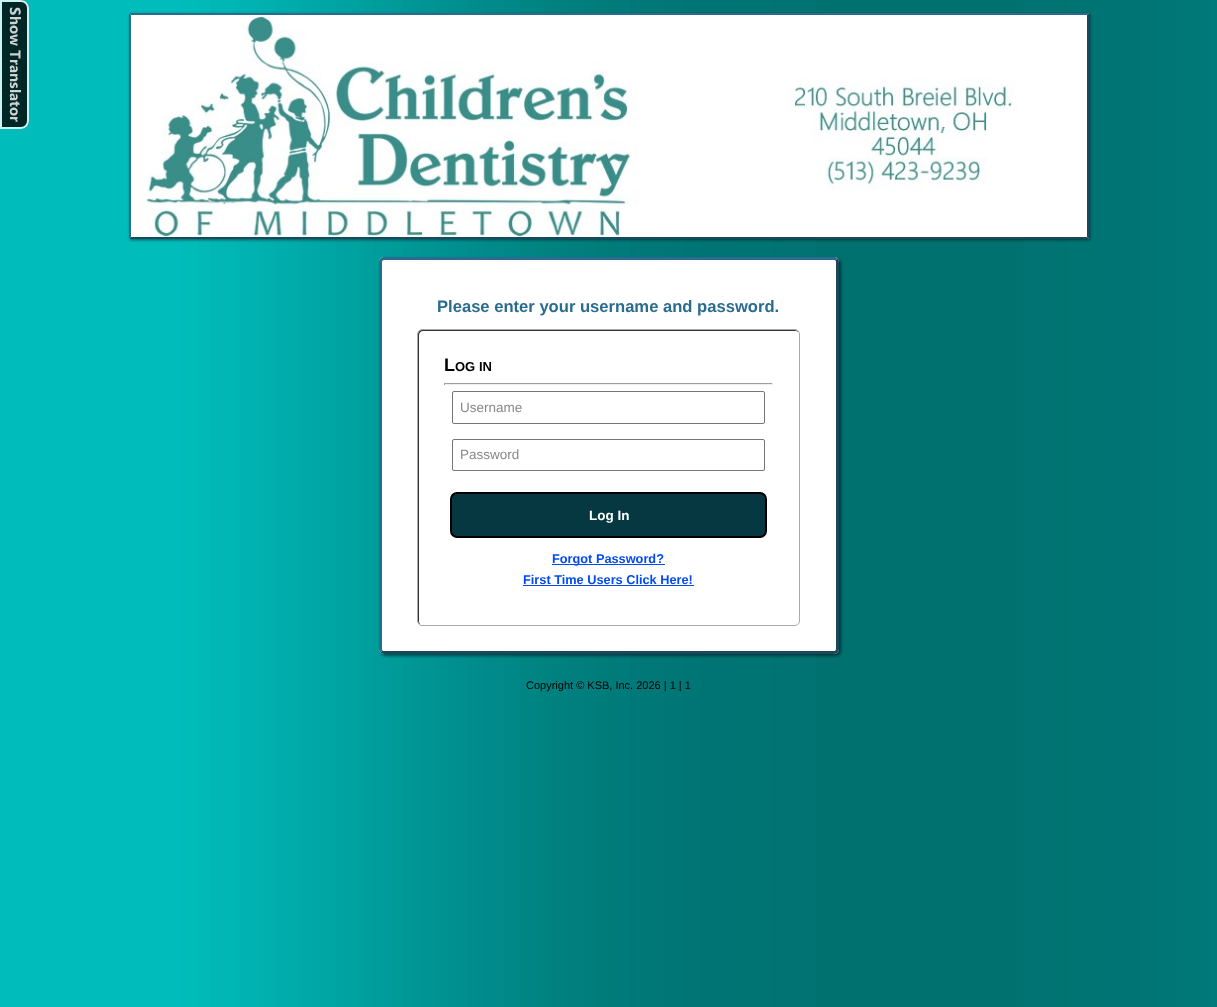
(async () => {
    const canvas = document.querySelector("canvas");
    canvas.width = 1217;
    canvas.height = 1007;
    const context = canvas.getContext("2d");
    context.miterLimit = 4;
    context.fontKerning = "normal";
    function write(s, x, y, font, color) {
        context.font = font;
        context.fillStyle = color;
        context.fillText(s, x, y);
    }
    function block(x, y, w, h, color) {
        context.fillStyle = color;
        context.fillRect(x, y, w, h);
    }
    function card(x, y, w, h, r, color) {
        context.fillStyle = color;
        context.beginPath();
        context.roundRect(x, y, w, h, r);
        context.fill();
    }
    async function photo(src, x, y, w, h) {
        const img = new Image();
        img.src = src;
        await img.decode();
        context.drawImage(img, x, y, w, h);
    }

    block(0, 0, 1217, 1007, "rgb(255, 255, 255)");
    await photo("media/1.png", 0, 0, 1217, 1007);
    context.fillStyle = "rgb(0, 38, 37)";
    context.beginPath();
    context.roundRect(0, 0, 29, 129, [0, 8, 8, 0]);
    context.fill();
    await photo("media/2.png", 9, 7, 12, 115);
    context.beginPath();
    context.roundRect(1, 1, 27, 127, [0, 7, 7, 0]);
    context.strokeStyle = "rgb(204, 242, 241)";
    context.lineWidth = 2;
    context.stroke();
    context.fillStyle = "rgba(0, 0, 0, 0.5)";
    context.filter = "blur(1.5px)";
    context.beginPath();
    context.rect(130, 14, 960, 226);
    context.fill();
    context.filter = "none";
    block(129, 13, 960, 226, "rgb(255, 255, 255)");
    context.fillStyle = "rgb(41, 108, 143)";
    context.beginPath();
    context.moveTo(129, 13);
    context.lineTo(1089, 13);
    context.lineTo(1087, 15);
    context.lineTo(131, 15);
    context.closePath();
    context.fill();
    context.fillStyle = "rgb(27, 72, 95)";
    context.beginPath();
    context.moveTo(1089, 13);
    context.lineTo(1089, 239);
    context.lineTo(1087, 237);
    context.lineTo(1087, 15);
    context.closePath();
    context.fill();
    context.beginPath();
    context.moveTo(1089, 239);
    context.lineTo(129, 239);
    context.lineTo(131, 237);
    context.lineTo(1087, 237);
    context.closePath();
    context.fill();
    context.fillStyle = "rgb(41, 108, 143)";
    context.beginPath();
    context.moveTo(129, 239);
    context.lineTo(129, 13);
    context.lineTo(131, 15);
    context.lineTo(131, 237);
    context.closePath();
    context.fill();
    await photo("media/3.png", 146, 15, 871, 222);
    context.fillStyle = "rgba(0, 0, 0, 0.5)";
    context.filter = "blur(1.5px)";
    context.beginPath();
    context.roundRect(381, 259, 460, 397, 5);
    context.fill();
    context.filter = "none";
    card(379, 257, 460, 397, 5, "rgb(255, 255, 255)");
    context.beginPath();
    context.moveTo(836.5, 259.5);
    context.bezierCurveTo(837, 260, 837.5, 261, 837.5, 262);
    context.lineTo(837.5, 649);
    context.bezierCurveTo(837.5, 650, 837, 651, 836.5, 651.5);
    context.bezierCurveTo(836, 652, 835, 652.5, 834, 652.5);
    context.lineTo(384, 652.5);
    context.bezierCurveTo(383, 652.5, 382, 652, 381.5, 651.5);
    context.strokeStyle = "rgb(27, 72, 95)";
    context.lineWidth = 3;
    context.stroke();
    context.beginPath();
    context.moveTo(381.5, 651.5);
    context.bezierCurveTo(381, 651, 380.5, 650, 380.5, 649);
    context.lineTo(380.5, 262);
    context.bezierCurveTo(380.5, 261, 381, 260, 381.5, 259.5);
    context.bezierCurveTo(382, 259, 383, 258.5, 384, 258.5);
    context.lineTo(834, 258.5);
    context.bezierCurveTo(835, 258.5, 836, 259, 836.5, 259.5);
    context.strokeStyle = "rgb(41, 108, 143)";
    context.stroke();
    write("Please enter your username and password.", 437, 312, "bold 16.6px Liberation Sans", "rgb(41, 108, 143)");
    context.fillStyle = "rgb(51, 51, 51)";
    context.beginPath();
    context.moveTo(423, 331);
    context.lineTo(796, 331);
    context.lineTo(798, 332);
    context.bezierCurveTo(798, 331, 796, 330, 795, 330);
    context.lineTo(422, 330);
    context.bezierCurveTo(420, 330, 418, 332, 418, 334);
    context.lineTo(418, 621);
    context.bezierCurveTo(418, 622, 419, 624, 420, 624);
    context.lineTo(419, 622);
    context.lineTo(419, 335);
    context.bezierCurveTo(419, 333, 421, 331, 423, 331);
    context.closePath();
    context.fill();
    context.beginPath();
    context.roundRect(417.5, 329.5, 382, 296, 4.5);
    context.strokeStyle = "rgb(170, 170, 170)";
    context.lineWidth = 1;
    context.stroke();
    write("L", 444, 371, "bold 18px Liberation Sans", "rgb(0, 0, 0)");
    write("OG", 455, 371, "bold 13px Liberation Sans", "rgb(0, 0, 0)");
    write("IN", 479, 371, "bold 13px Liberation Sans", "rgb(0, 0, 0)");
    block(444, 383, 329, 1, "rgb(159, 159, 159)");
    block(772, 383, 1, 2, "rgb(238, 238, 238)");
    block(444, 384, 329, 1, "rgb(238, 238, 238)");
    block(444, 383, 1, 2, "rgb(159, 159, 159)");
    context.beginPath();
    context.roundRect(452.5, 391.5, 312, 32, 1.5);
    context.strokeStyle = "rgb(118, 118, 118)";
    context.stroke();
    write("Username", 460, 412, "13.5px Liberation Sans", "rgb(136, 136, 136)");
    context.beginPath();
    context.roundRect(452.5, 439.5, 312, 31, 1.5);
    context.stroke();
    write("Password", 460, 459, "13.5px Liberation Sans", "rgb(136, 136, 136)");
    context.fillStyle = "rgb(6, 56, 66)";
    context.beginPath();
    context.roundRect(451, 493, 315, 44, 6);
    context.fill();
    context.strokeStyle = "rgb(0, 0, 0)";
    context.lineWidth = 2;
    context.stroke();
    write("Log In", 589, 520, "bold 13.5px Liberation Sans", "rgb(255, 255, 255)");
    block(552, 564, 113, 1, "rgb(3, 74, 243)");
    write("Forgot Password?", 552, 563, "bold 12.75px Liberation Sans", "rgb(3, 74, 243)");
    write("First Time Users Click Here!", 523, 584, "bold 12.75px Liberation Sans", "rgb(3, 74, 243)");
    block(523, 585, 171, 1, "rgb(3, 74, 243)");
    write("Copyright © KSB, Inc. 2026 | 1 | 1", 526, 689, "11px Liberation Sans", "rgb(0, 0, 0)");
})();
